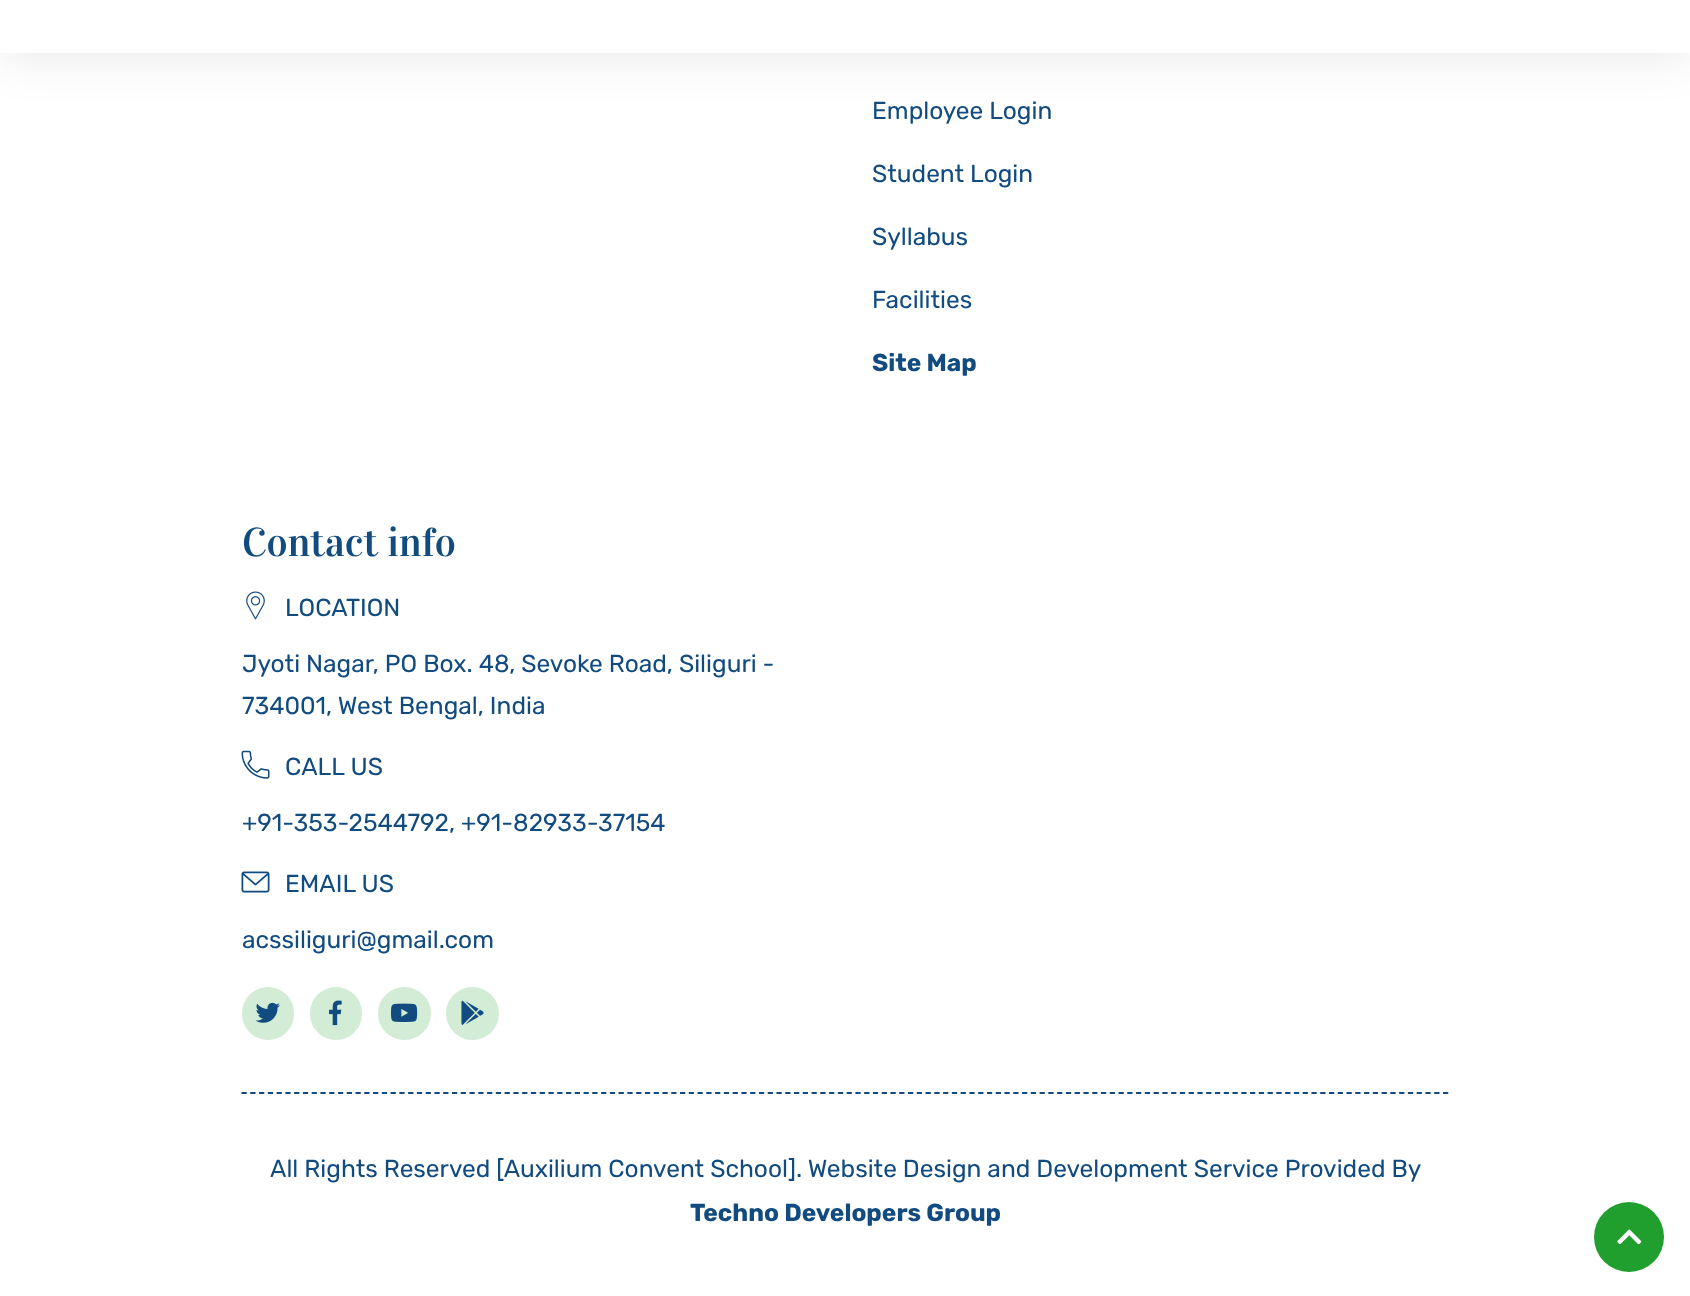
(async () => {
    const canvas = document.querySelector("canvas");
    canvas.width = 1690;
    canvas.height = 1296;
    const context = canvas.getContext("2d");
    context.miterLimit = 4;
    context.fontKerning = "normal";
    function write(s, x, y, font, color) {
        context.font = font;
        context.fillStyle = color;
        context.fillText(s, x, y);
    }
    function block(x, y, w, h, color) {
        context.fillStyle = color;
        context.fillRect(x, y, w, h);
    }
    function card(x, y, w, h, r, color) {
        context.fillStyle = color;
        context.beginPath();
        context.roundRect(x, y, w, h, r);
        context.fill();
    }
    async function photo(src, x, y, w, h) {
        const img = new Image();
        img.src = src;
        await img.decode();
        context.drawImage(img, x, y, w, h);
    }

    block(0, 0, 1690, 1296, "rgb(255, 255, 255)");
    context.fillStyle = "rgba(0, 0, 0, 0.09)";
    context.filter = "blur(24.5px)";
    context.beginPath();
    context.rect(0, 4, 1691, 52);
    context.fill();
    context.filter = "none";
    block(0, 0, 1690, 53, "rgb(255, 255, 255)");
    write("Employee Login", 872, 119, "24.5px Rubik", "rgb(17, 75, 127)");
    write("Student Login", 872, 182, "24.5px Rubik", "rgb(17, 75, 127)");
    write("Syllabus", 872, 245, "24.5px Rubik", "rgb(17, 75, 127)");
    write("Facilities", 872, 308, "24.5px Rubik", "rgb(17, 75, 127)");
    write("Site Map", 872, 371, "bold 24.5px Rubik", "rgb(17, 75, 127)");
    write("Contact info", 242, 556, "40.25px Vidaloka", "rgb(17, 75, 127)");
    await photo("media/1.png", 246, 591, 19, 29);
    write("LOCATION", 285, 616, "24.5px Rubik", "rgb(17, 75, 127)");
    write("Jyoti Nagar, PO Box. 48, Sevoke Road, Siliguri -", 242, 672, "24.5px Rubik", "rgb(17, 75, 127)");
    write("734001, West Bengal, India", 242, 714, "24.5px Rubik", "rgb(17, 75, 127)");
    await photo("media/2.png", 241, 750, 29, 29);
    write("CALL US", 285, 775, "24.5px Rubik", "rgb(17, 75, 127)");
    write("+91-353-2544792, +91-82933-37154", 242, 831, "24.5px Rubik", "rgb(17, 75, 127)");
    await photo("media/3.png", 241, 871, 29, 22);
    write("EMAIL US", 285, 892, "24.5px Rubik", "rgb(17, 75, 127)");
    write("acssiliguri@gmail.com", 242, 948, "24.5px Rubik", "rgb(17, 75, 127)");
    card(242, 987, 52, 53, 26, "rgb(210, 236, 213)");
    await photo("media/4.png", 255, 1002, 25, 21);
    card(310, 987, 52, 53, 26, "rgb(210, 236, 213)");
    await photo("media/5.png", 329, 1000, 13, 26);
    context.beginPath();
    context.arc(404.5, 1013.5, 26.5, 0, Math.PI * 2);
    context.fill();
    await photo("media/6.png", 390, 1003, 28, 19);
    context.beginPath();
    context.arc(472.5, 1013.5, 26.5, 0, Math.PI * 2);
    context.fill();
    await photo("media/7.png", 461, 1000, 23, 25);
    context.beginPath();
    context.moveTo(241.5, 1093);
    context.lineTo(1449, 1093);
    context.strokeStyle = "rgb(17, 75, 127)";
    context.lineWidth = 1.8;
    context.setLineDash([5.25, 3.52]);
    context.stroke();
    write("All Rights Reserved [Auxilium Convent School]. Website Design and Development Service Provided By", 270, 1177, "24.5px Rubik", "rgb(17, 75, 127)");
    write("Techno Developers Group", 690, 1221, "bold 24.5px Rubik", "rgb(17, 75, 127)");
    context.fillStyle = "rgb(32, 158, 46)";
    context.beginPath();
    context.arc(1629, 1237, 35, 0, Math.PI * 2);
    context.fill();
    await photo("media/8.png", 1617, 1229, 25, 16);
})();
